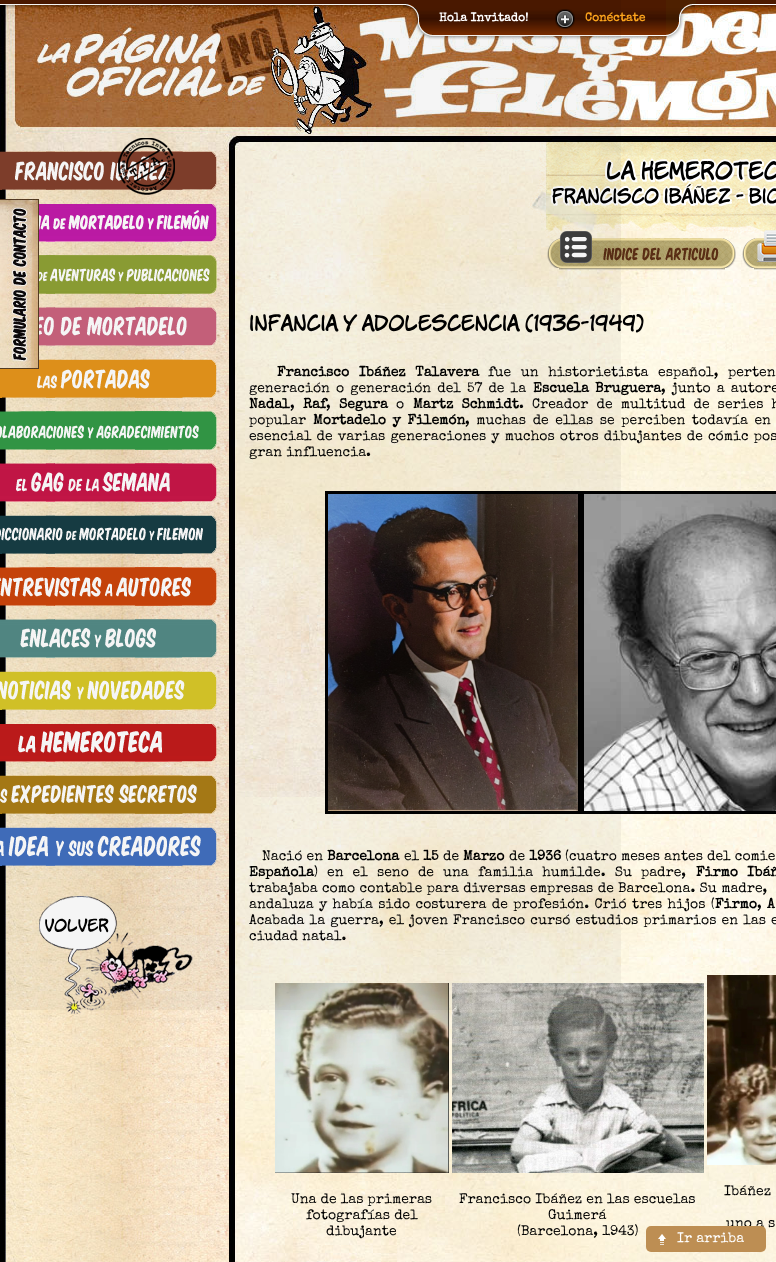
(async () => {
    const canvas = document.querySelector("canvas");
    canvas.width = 776;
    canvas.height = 1262;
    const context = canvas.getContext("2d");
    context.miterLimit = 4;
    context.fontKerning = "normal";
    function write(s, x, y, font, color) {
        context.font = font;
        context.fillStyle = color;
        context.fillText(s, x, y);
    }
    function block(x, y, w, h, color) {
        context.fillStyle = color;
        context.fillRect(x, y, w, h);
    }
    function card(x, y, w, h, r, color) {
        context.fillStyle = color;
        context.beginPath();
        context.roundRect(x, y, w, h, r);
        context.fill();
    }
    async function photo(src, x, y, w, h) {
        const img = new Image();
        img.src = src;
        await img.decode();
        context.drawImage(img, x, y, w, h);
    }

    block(0, 0, 776, 1262, "rgb(255, 255, 255)");
    await photo("media/9.png", 0, 5, 776, 146);
    await photo("media/1.png", 0, 0, 776, 9);
    await photo("media/2.png", 403, 3, 30, 37);
    await photo("media/3.png", 433, 4, 101, 36);
    await photo("media/4.png", 534, 4, 15, 36);
    await photo("media/5.png", 549, 4, 117, 36);
    await photo("media/6.png", 555, 9, 20, 20);
    await photo("media/12.png", 0, 151, 229, 1111);
    await photo("media/18.png", 0, 359, 217, 39);
    await photo("media/8.png", 0, 199, 39, 170);
    await photo("media/30.png", 229, 151, 547, 1111);
    await photo("media/31.png", 528, 142, 248, 96);
    await photo("media/10.png", 547, 231, 189, 39);
    await photo("media/14.png", 0, 151, 217, 39);
    await photo("media/13.png", 118, 138, 57, 57);
    await photo("media/15.png", 39, 204, 178, 38);
    await photo("media/16.png", 39, 255, 178, 39);
    await photo("media/17.png", 39, 307, 178, 39);
    await photo("media/19.png", 0, 411, 217, 39);
    await photo("media/20.png", 0, 463, 217, 39);
    await photo("media/21.png", 0, 515, 217, 39);
    await photo("media/22.png", 0, 567, 217, 39);
    await photo("media/23.png", 0, 619, 217, 39);
    await photo("media/24.png", 0, 671, 217, 39);
    await photo("media/25.png", 0, 724, 217, 38);
    await photo("media/26.png", 0, 775, 217, 39);
    await photo("media/27.png", 0, 827, 217, 39);
    await photo("media/28.png", 39, 896, 154, 118);
    await photo("media/29.png", 45, 918, 64, 15);
    await photo("media/32.png", 605, 158, 33, 25);
    await photo("media/34.png", 550, 185, 111, 21);
    await photo("media/38.png", 250, 314, 89, 18);
    await photo("media/39.png", 343, 314, 15, 18);
    await photo("media/40.png", 361, 314, 159, 18);
    await photo("media/41.png", 525, 313, 119, 20);
    context.strokeStyle = "rgb(0, 0, 0)";
    context.lineWidth = 3;
    context.strokeRect(326.5, 492.5, 253, 320);
    context.strokeRect(582.5, 492.5, 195, 320);
    await photo("media/42.png", 328, 494, 250, 317);
    await photo("media/43.png", 584, 494, 192, 317);
    await photo("media/44.png", 275, 983, 174, 190);
    await photo("media/45.png", 452, 983, 252, 190);
    block(0, 0, 621, 1010, "rgba(0, 0, 0, 0.04)");
    write("Hola Invitado!", 439, 21, "bold 12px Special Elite", "rgb(255, 255, 255)");
    write("Conéctate", 585, 21, "bold 12px Special Elite", "rgb(252, 164, 28)");
    await photo("media/7.png", 666, 0, 30, 39);
    await photo("media/11.png", 742, 230, 34, 40);
    await photo("media/33.png", 639, 158, 137, 25);
    await photo("media/35.png", 662, 182, 71, 24);
    await photo("media/36.png", 734, 192, 12, 8);
    await photo("media/37.png", 747, 186, 29, 20);
    context.wordSpacing = "5.5px";
    write("Francisco Ibáñez Talavera", 277, 376, "bold 14px Special Elite", "rgb(0, 0, 0)");
    write("fue un historietista español, perten", 488, 376, "14px Special Elite", "rgb(0, 0, 0)");
    context.wordSpacing = "2px";
    write("generación o generación del 57 de la", 249, 392, "14px Special Elite", "rgb(0, 0, 0)");
    write("Escuela Bruguera", 533, 392, "bold 14px Special Elite", "rgb(0, 0, 0)");
    write(", junto a autore", 661, 392, "14px Special Elite", "rgb(0, 0, 0)");
    context.wordSpacing = "0px";
    write("Nadal", 249, 408, "bold 14px Special Elite", "rgb(0, 0, 0)");
    write(",", 290, 408, "14px Special Elite", "rgb(0, 0, 0)");
    write("Raf", 303, 408, "bold 14px Special Elite", "rgb(0, 0, 0)");
    write(",", 326, 408, "14px Special Elite", "rgb(0, 0, 0)");
    write("Segura", 339, 408, "bold 14px Special Elite", "rgb(0, 0, 0)");
    write("o", 396, 408, "14px Special Elite", "rgb(0, 0, 0)");
    context.wordSpacing = "4px";
    write("Martz Schmidt", 413, 408, "bold 14px Special Elite", "rgb(0, 0, 0)");
    write(". Creador de multitud de series h", 519, 408, "14px Special Elite", "rgb(0, 0, 0)");
    context.wordSpacing = "0px";
    write("popular", 249, 424, "14px Special Elite", "rgb(0, 0, 0)");
    context.wordSpacing = "2.5px";
    write("Mortadelo y Filemón", 313, 424, "bold 14px Special Elite", "rgb(0, 0, 0)");
    write(", muchas de ellas se perciben todavía en", 465, 424, "14px Special Elite", "rgb(0, 0, 0)");
    context.wordSpacing = "1px";
    write("esencial de varias generaciones y muchos otros dibujantes de cómic pos", 249, 440, "14px Special Elite", "rgb(0, 0, 0)");
    context.wordSpacing = "0px";
    write("gran influencia.", 249, 456, "14px Special Elite", "rgb(0, 0, 0)");
    write("Nació en", 262, 860, "14px Special Elite", "rgb(0, 0, 0)");
    write("Barcelona", 327, 860, "bold 14px Special Elite", "rgb(0, 0, 0)");
    write("el", 404, 860, "14px Special Elite", "rgb(0, 0, 0)");
    write("15", 423, 860, "bold 14px Special Elite", "rgb(0, 0, 0)");
    write("de", 443, 860, "14px Special Elite", "rgb(0, 0, 0)");
    write("Marzo", 463, 860, "bold 14px Special Elite", "rgb(0, 0, 0)");
    write("de", 509, 860, "14px Special Elite", "rgb(0, 0, 0)");
    write("1936", 529, 860, "bold 14px Special Elite", "rgb(0, 0, 0)");
    write("(cuatro meses antes del comie", 565, 860, "14px Special Elite", "rgb(0, 0, 0)");
    write("Española", 249, 876, "bold 14px Special Elite", "rgb(0, 0, 0)");
    context.wordSpacing = "5px";
    write(") en el seno de una familia humilde. Su padre,", 314, 876, "14px Special Elite", "rgb(0, 0, 0)");
    write("Firmo Ibáñ", 696, 876, "bold 14px Special Elite", "rgb(0, 0, 0)");
    context.wordSpacing = "0.25px";
    write("trabajaba como contable para diversas empresas de Barcelona. Su madre,", 249, 892, "14px Special Elite", "rgb(0, 0, 0)");
    context.wordSpacing = "1.25px";
    write("andaluza y había sido costurera de profesión. Crió tres hijos (", 249, 908, "14px Special Elite", "rgb(0, 0, 0)");
    context.wordSpacing = "0px";
    write("Firmo", 715, 908, "bold 14px Special Elite", "rgb(0, 0, 0)");
    write(",", 757, 908, "14px Special Elite", "rgb(0, 0, 0)");
    context.wordSpacing = "1.25px";
    write("A", 767, 908, "bold 14px Special Elite", "rgb(0, 0, 0)");
    context.wordSpacing = "1px";
    write("Acabada la guerra, el joven Francisco cursó estudios primarios en las e", 249, 924, "14px Special Elite", "rgb(0, 0, 0)");
    context.wordSpacing = "0px";
    write("ciudad natal.", 249, 940, "14px Special Elite", "rgb(0, 0, 0)");
    write("Una de las primeras", 291, 1203, "14px Special Elite", "rgb(0, 0, 0)");
    write("fotografías del", 306, 1219, "14px Special Elite", "rgb(0, 0, 0)");
    write("dibujante", 326, 1235, "14px Special Elite", "rgb(0, 0, 0)");
    write("Francisco Ibáñez en las escuelas", 459, 1203, "14px Special Elite", "rgb(0, 0, 0)");
    write("Guimerá", 548, 1219, "14px Special Elite", "rgb(0, 0, 0)");
    write("(Barcelona, 1943)", 517, 1235, "14px Special Elite", "rgb(0, 0, 0)");
    await photo("media/46.png", 707, 975, 69, 190);
    write("Ibáñez", 724, 1195, "14px Special Elite", "rgb(0, 0, 0)");
    write("uno a s", 726, 1227, "14px Special Elite", "rgb(0, 0, 0)");
    card(646, 1226, 120, 26, 5, "rgb(189, 142, 83)");
    await photo("media/47.png", 658, 1234, 8, 11);
    write("Ir arriba", 677, 1242, "14px Special Elite", "rgb(255, 255, 255)");
})();
